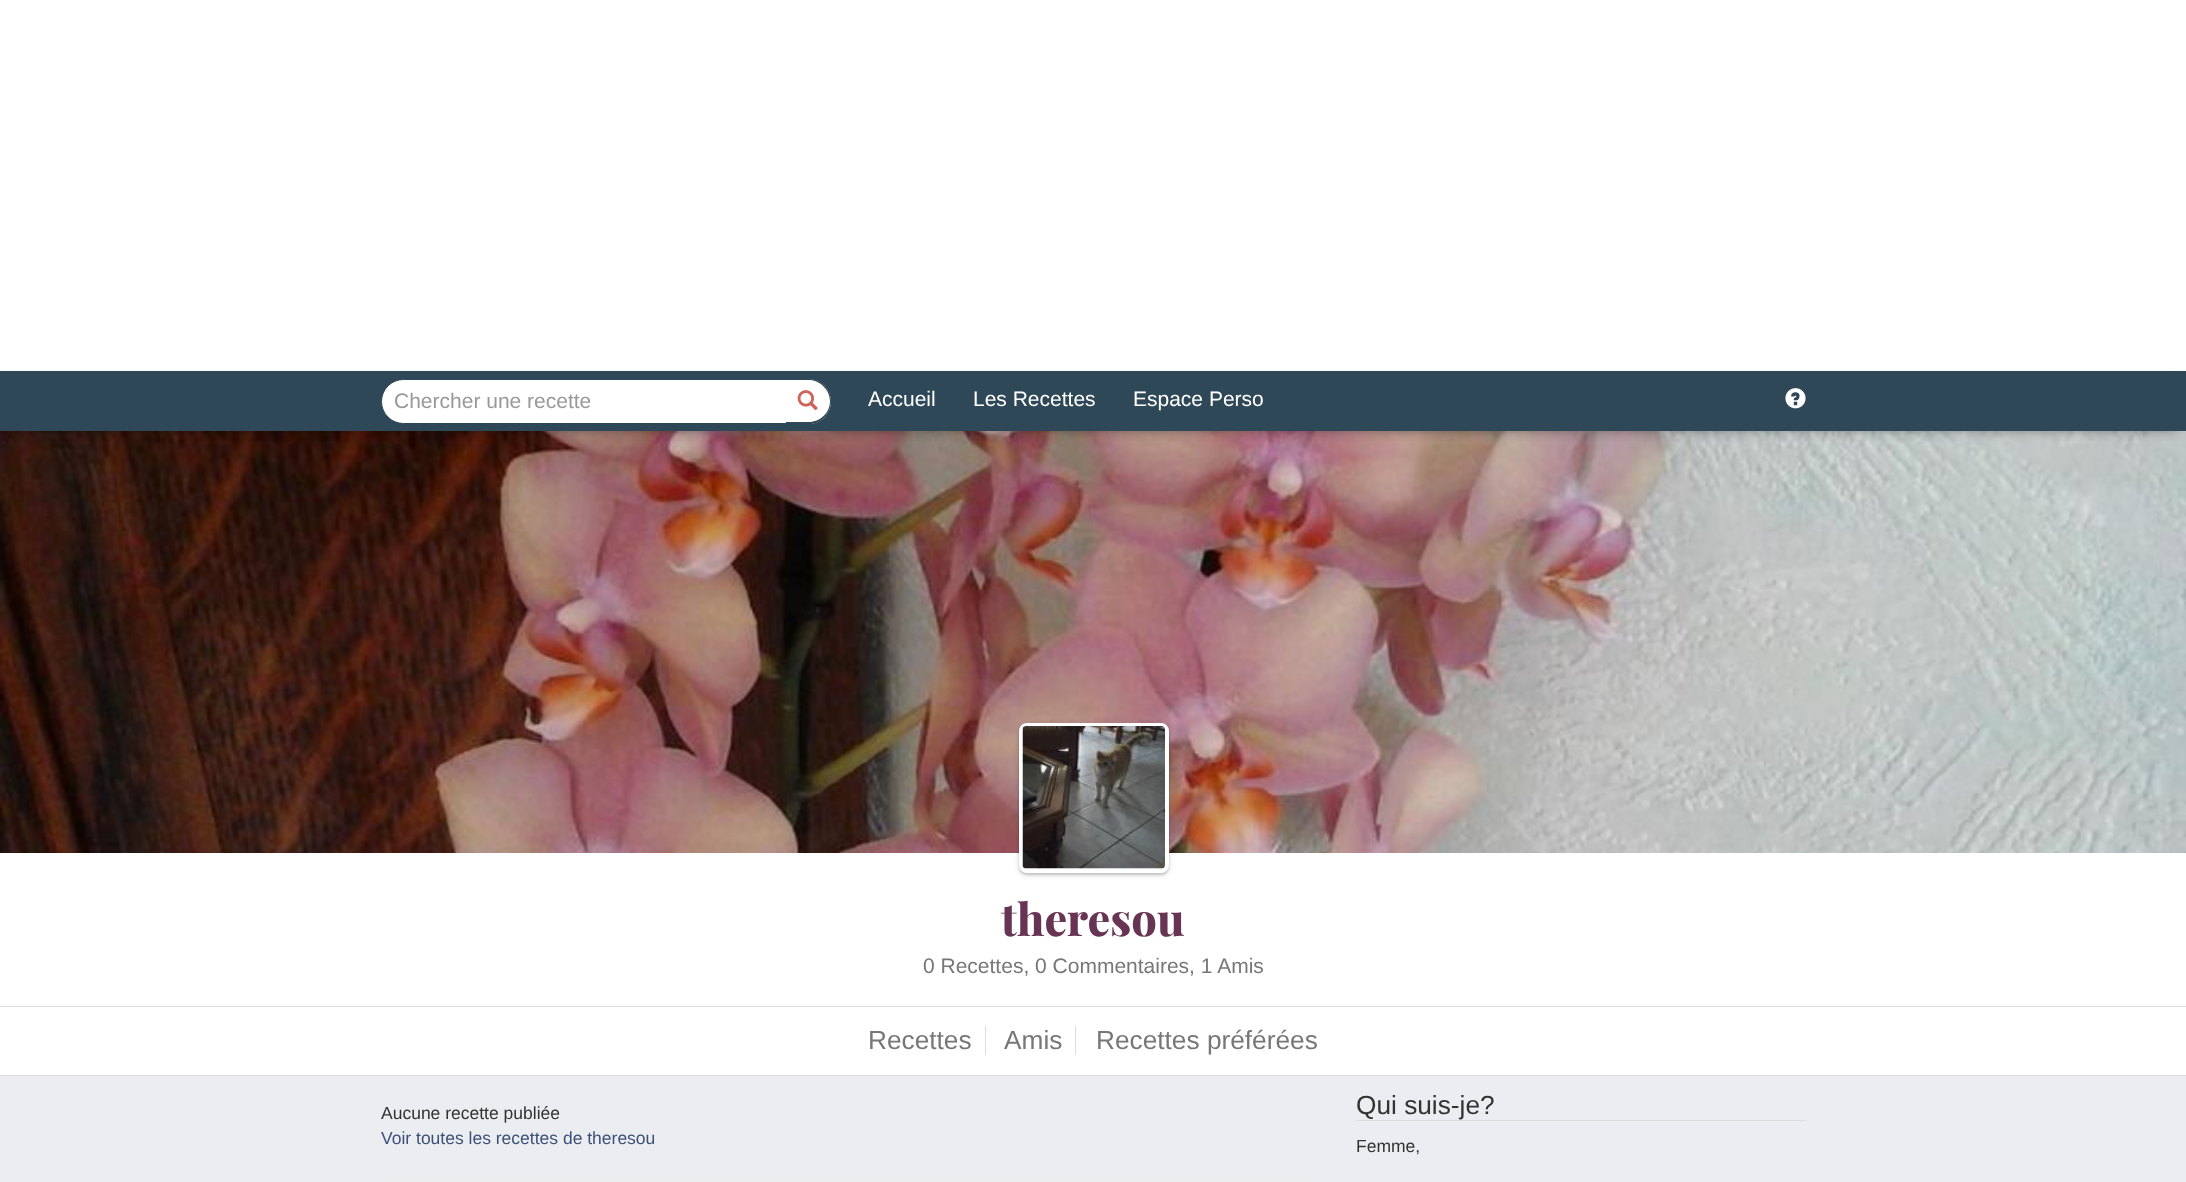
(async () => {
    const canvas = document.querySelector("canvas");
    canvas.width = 2186;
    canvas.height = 1182;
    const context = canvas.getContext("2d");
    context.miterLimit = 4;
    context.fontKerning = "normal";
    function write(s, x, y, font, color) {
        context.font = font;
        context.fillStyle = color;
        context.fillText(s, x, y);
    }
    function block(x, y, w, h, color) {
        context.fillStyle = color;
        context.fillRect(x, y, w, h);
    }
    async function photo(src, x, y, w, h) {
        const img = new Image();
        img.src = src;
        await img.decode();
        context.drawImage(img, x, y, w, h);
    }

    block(0, 0, 2186, 1182, "rgb(235, 237, 240)");
    block(0, 0, 2186, 371, "rgb(255, 255, 255)");
    await photo("media/3.png", 0, 431, 2186, 422);
    context.fillStyle = "rgba(0, 0, 0, 0.24)";
    context.filter = "blur(6px)";
    context.beginPath();
    context.rect(5, 380, 2176, 50);
    context.fill();
    context.filter = "none";
    context.fillStyle = "rgba(0, 0, 0, 0.16)";
    context.filter = "blur(5px)";
    context.beginPath();
    context.rect(13, 396, 2161, 35);
    context.fill();
    context.filter = "none";
    block(0, 371, 2186, 60, "rgb(47, 72, 88)");
    context.fillStyle = "rgb(255, 255, 255)";
    context.beginPath();
    context.roundRect(381.5, 379.5, 406, 44, [22, 0, 0, 22]);
    context.fill();
    context.strokeStyle = "rgb(47, 72, 88)";
    context.stroke();
    write("Chercher une recette", 394, 408, "21px Liberation Sans", "rgb(153, 153, 153)");
    context.fillStyle = "rgb(255, 255, 255)";
    context.beginPath();
    context.roundRect(786, 379, 45, 45, [0, 22.5, 22.5, 0]);
    context.fill();
    context.fillStyle = "rgb(47, 72, 88)";
    context.beginPath();
    context.moveTo(786, 379);
    context.lineTo(809, 379);
    context.bezierCurveTo(821, 379, 831, 389, 831, 401);
    context.bezierCurveTo(831, 414, 821, 424, 809, 424);
    context.lineTo(786, 424);
    context.closePath();
    context.moveTo(786, 380);
    context.lineTo(809, 380);
    context.bezierCurveTo(820, 380, 830, 390, 830, 401);
    context.bezierCurveTo(830, 413, 820, 422, 809, 422);
    context.lineTo(786, 422);
    context.closePath();
    context.fill("evenodd");
    await photo("media/1.png", 797, 390, 21, 21);
    write("Accueil", 868, 406, "21px Liberation Sans", "rgb(255, 255, 255)");
    write("Les Recettes", 973, 406, "21px Liberation Sans", "rgb(255, 255, 255)");
    write("Espace Perso", 1133, 406, "21px Liberation Sans", "rgb(255, 255, 255)");
    await photo("media/2.png", 1785, 388, 21, 21);
    block(0, 853, 2186, 153, "rgb(255, 255, 255)");
    context.fillStyle = "rgba(0, 0, 0, 0.12)";
    context.filter = "blur(3px)";
    context.beginPath();
    context.roundRect(1019, 725, 150, 150, 8);
    context.fill();
    context.filter = "none";
    context.fillStyle = "rgba(0, 0, 0, 0.16)";
    context.filter = "blur(1px)";
    context.beginPath();
    context.roundRect(1019, 725, 150, 150, 8);
    context.fill();
    context.filter = "none";
    context.fillStyle = "rgb(255, 255, 255)";
    context.beginPath();
    context.roundRect(1021, 725, 146, 146, 6);
    context.fill();
    context.strokeStyle = "rgb(255, 255, 255)";
    context.lineWidth = 4;
    context.stroke();
    await photo("media/4.png", 1022, 726, 143, 143);
    write("theresou", 1001, 936, "800 45px Playfair Display", "rgb(103, 52, 83)");
    write("0 Recettes, 0 Commentaires, 1 Amis", 923, 973, "21px Liberation Sans", "rgb(119, 119, 119)");
    block(0, 1007, 2186, 68, "rgb(255, 255, 255)");
    block(0, 1006, 2186, 1, "rgb(221, 221, 221)");
    block(0, 1075, 2186, 1, "rgb(221, 221, 221)");
    write("Recettes", 868, 1049, "26.25px Liberation Sans", "rgb(119, 119, 119)");
    block(985, 1026, 1, 29, "rgb(221, 221, 221)");
    write("Amis", 1004, 1049, "26.25px Liberation Sans", "rgb(119, 119, 119)");
    block(1075, 1026, 1, 29, "rgb(221, 221, 221)");
    write("Recettes préférées", 1096, 1049, "26.25px Liberation Sans", "rgb(119, 119, 119)");
    write("Aucune recette publiée", 381, 1119, "17.5px Liberation Sans", "rgb(51, 51, 51)");
    write("Voir toutes les recettes de theresou", 381, 1144, "17.5px Liberation Sans", "rgb(60, 81, 121)");
    block(381, 1176, 938, 1, "rgb(238, 238, 238)");
    block(1356, 1120, 450, 1, "rgb(221, 221, 221)");
    write("Qui suis-je?", 1356, 1114, "26.25px Liberation Sans", "rgb(51, 51, 51)");
    write("Femme,", 1356, 1152, "17.5px Liberation Sans", "rgb(51, 51, 51)");
})();
